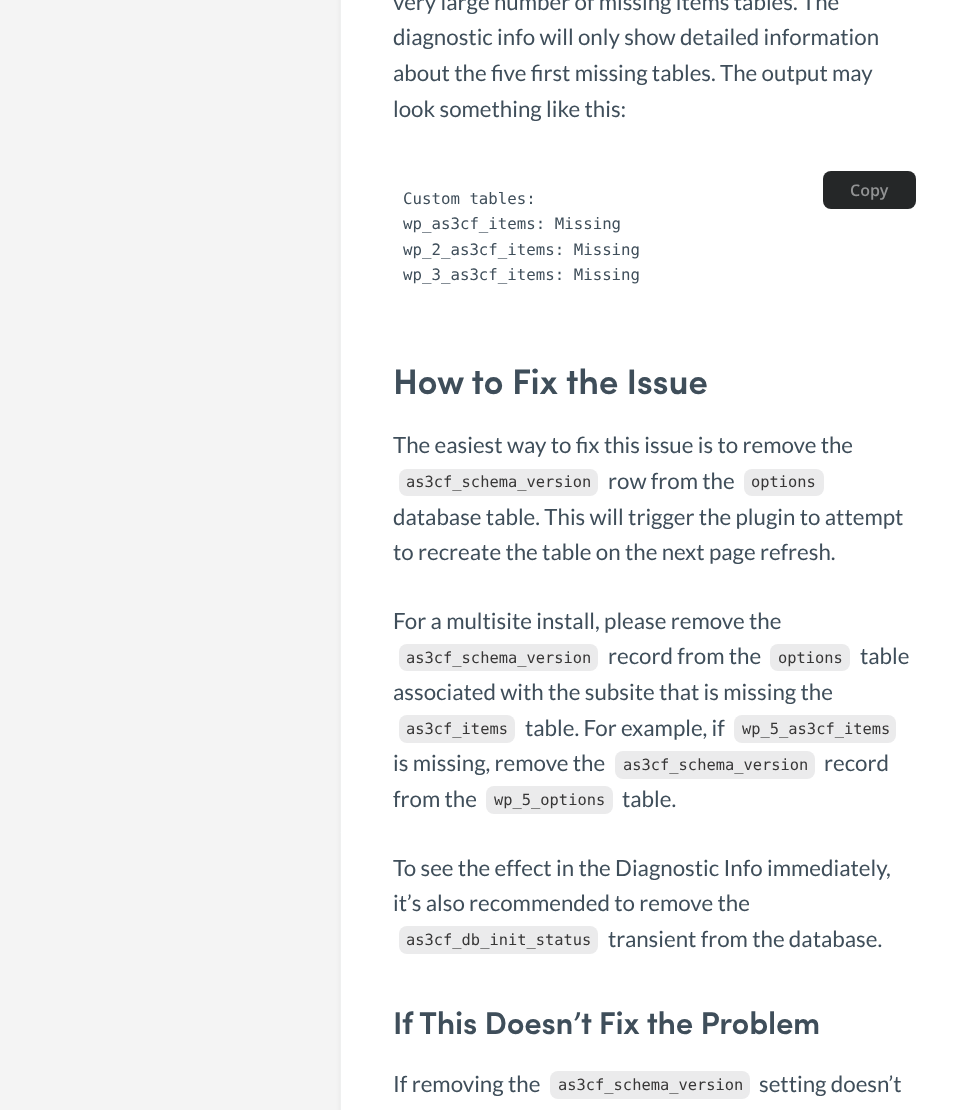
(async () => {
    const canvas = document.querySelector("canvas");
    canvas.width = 969;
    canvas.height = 1110;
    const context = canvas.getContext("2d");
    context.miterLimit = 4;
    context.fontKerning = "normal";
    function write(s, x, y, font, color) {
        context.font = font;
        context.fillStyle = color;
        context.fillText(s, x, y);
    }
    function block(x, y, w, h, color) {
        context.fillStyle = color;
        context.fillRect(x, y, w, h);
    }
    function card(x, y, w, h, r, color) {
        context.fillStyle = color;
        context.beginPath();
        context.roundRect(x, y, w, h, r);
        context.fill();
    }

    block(0, 0, 969, 1110, "rgb(244, 244, 244)");
    context.fillStyle = "rgba(0, 0, 0, 0.05)";
    context.filter = "blur(2.5px)";
    context.beginPath();
    context.rect(340, -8, 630, 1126);
    context.fill();
    context.filter = "none";
    context.fillStyle = "rgb(255, 255, 255)";
    context.beginPath();
    context.rect(340.5, -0.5, 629, 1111);
    context.fill();
    context.strokeStyle = "rgb(239, 240, 240)";
    context.stroke();
    write("very large number of missing items tables. The", 393, 10, "22.3px Lato", "rgb(63, 78, 90)");
    write("diagnostic info will only show detailed information", 393, 45, "22.3px Lato", "rgb(63, 78, 90)");
    write("about the five first missing tables. The output may", 393, 81, "22.3px Lato", "rgb(63, 78, 90)");
    write("look something like this:", 393, 117, "22.3px Lato", "rgb(63, 78, 90)");
    write("Custom tables:", 403, 204, "15.75px DejaVu Sans Mono", "rgb(63, 78, 90)");
    write("wp_as3cf_items: Missing", 403, 229, "15.75px DejaVu Sans Mono", "rgb(63, 78, 90)");
    write("wp_2_as3cf_items: Missing", 403, 255, "15.75px DejaVu Sans Mono", "rgb(63, 78, 90)");
    write("wp_3_as3cf_items: Missing", 403, 280, "15.75px DejaVu Sans Mono", "rgb(63, 78, 90)");
    card(823, 171, 93, 38, 8, "rgb(37, 39, 40)");
    write("Copy", 850, 196, "600 16px Open Sans", "rgb(146, 147, 148)");
    context.letterSpacing = "-0.25px";
    write("How to Fix the Issue", 393, 394, "600 35.5px Sofia", "rgb(63, 78, 90)");
    context.letterSpacing = "0px";
    write("The easiest way to fix this issue is to remove the", 393, 453, "22.3px Lato", "rgb(63, 78, 90)");
    card(399, 469, 199, 27, 8, "rgb(235, 235, 236)");
    write("as3cf_schema_version", 406, 487, "15.4px DejaVu Sans Mono", "rgb(55, 54, 54)");
    write("row from the", 608, 489, "22.3px Lato", "rgb(63, 78, 90)");
    card(744, 469, 80, 27, 8, "rgb(235, 235, 236)");
    write("options", 751, 487, "15.4px DejaVu Sans Mono", "rgb(55, 54, 54)");
    write("database table. This will trigger the plugin to attempt", 393, 525, "22.3px Lato", "rgb(63, 78, 90)");
    write("to recreate the table on the next page refresh.", 393, 560, "22.3px Lato", "rgb(63, 78, 90)");
    write("For a multisite install, please remove the", 393, 629, "22.3px Lato", "rgb(63, 78, 90)");
    card(399, 644, 199, 27, 8, "rgb(235, 235, 236)");
    write("as3cf_schema_version", 406, 663, "15.4px DejaVu Sans Mono", "rgb(55, 54, 54)");
    write("record from the", 608, 664, "22.3px Lato", "rgb(63, 78, 90)");
    card(770, 644, 80, 27, 8, "rgb(235, 235, 236)");
    write("options", 778, 663, "15.4px DejaVu Sans Mono", "rgb(55, 54, 54)");
    write("table", 860, 664, "22.3px Lato", "rgb(63, 78, 90)");
    write("associated with the subsite that is missing the", 393, 700, "22.3px Lato", "rgb(63, 78, 90)");
    card(399, 715, 116, 28, 8, "rgb(235, 235, 236)");
    write("as3cf_items", 406, 734, "15.4px DejaVu Sans Mono", "rgb(55, 54, 54)");
    write("table. For example, if", 525, 736, "22.3px Lato", "rgb(63, 78, 90)");
    card(734, 715, 162, 28, 8, "rgb(235, 235, 236)");
    write("wp_5_as3cf_items", 742, 734, "15.4px DejaVu Sans Mono", "rgb(55, 54, 54)");
    write("is missing, remove the", 393, 771, "22.3px Lato", "rgb(63, 78, 90)");
    card(615, 751, 200, 28, 8, "rgb(235, 235, 236)");
    write("as3cf_schema_version", 623, 770, "15.4px DejaVu Sans Mono", "rgb(55, 54, 54)");
    write("record", 824, 771, "22.3px Lato", "rgb(63, 78, 90)");
    write("from the", 393, 807, "22.3px Lato", "rgb(63, 78, 90)");
    card(486, 786, 127, 28, 8, "rgb(235, 235, 236)");
    write("wp_5_options", 494, 805, "15.4px DejaVu Sans Mono", "rgb(55, 54, 54)");
    write("table.", 622, 807, "22.3px Lato", "rgb(63, 78, 90)");
    write("To see the effect in the Diagnostic Info immediately,", 393, 876, "22.3px Lato", "rgb(63, 78, 90)");
    write("it’s also recommended to remove the", 393, 911, "22.3px Lato", "rgb(63, 78, 90)");
    card(399, 926, 199, 28, 8, "rgb(235, 235, 236)");
    write("as3cf_db_init_status", 406, 945, "15.4px DejaVu Sans Mono", "rgb(55, 54, 54)");
    write("transient from the database.", 608, 947, "22.3px Lato", "rgb(63, 78, 90)");
    context.letterSpacing = "-0.25px";
    write("If This Doesn’t Fix the Problem", 393, 1034, "600 31.5px Sofia", "rgb(63, 78, 90)");
    context.letterSpacing = "0px";
    write("If removing the", 393, 1092, "22.3px Lato", "rgb(63, 78, 90)");
    card(550, 1071, 200, 28, 8, "rgb(235, 235, 236)");
    write("as3cf_schema_version", 558, 1090, "15.4px DejaVu Sans Mono", "rgb(55, 54, 54)");
    write("setting doesn’t", 759, 1092, "22.3px Lato", "rgb(63, 78, 90)");
})();
